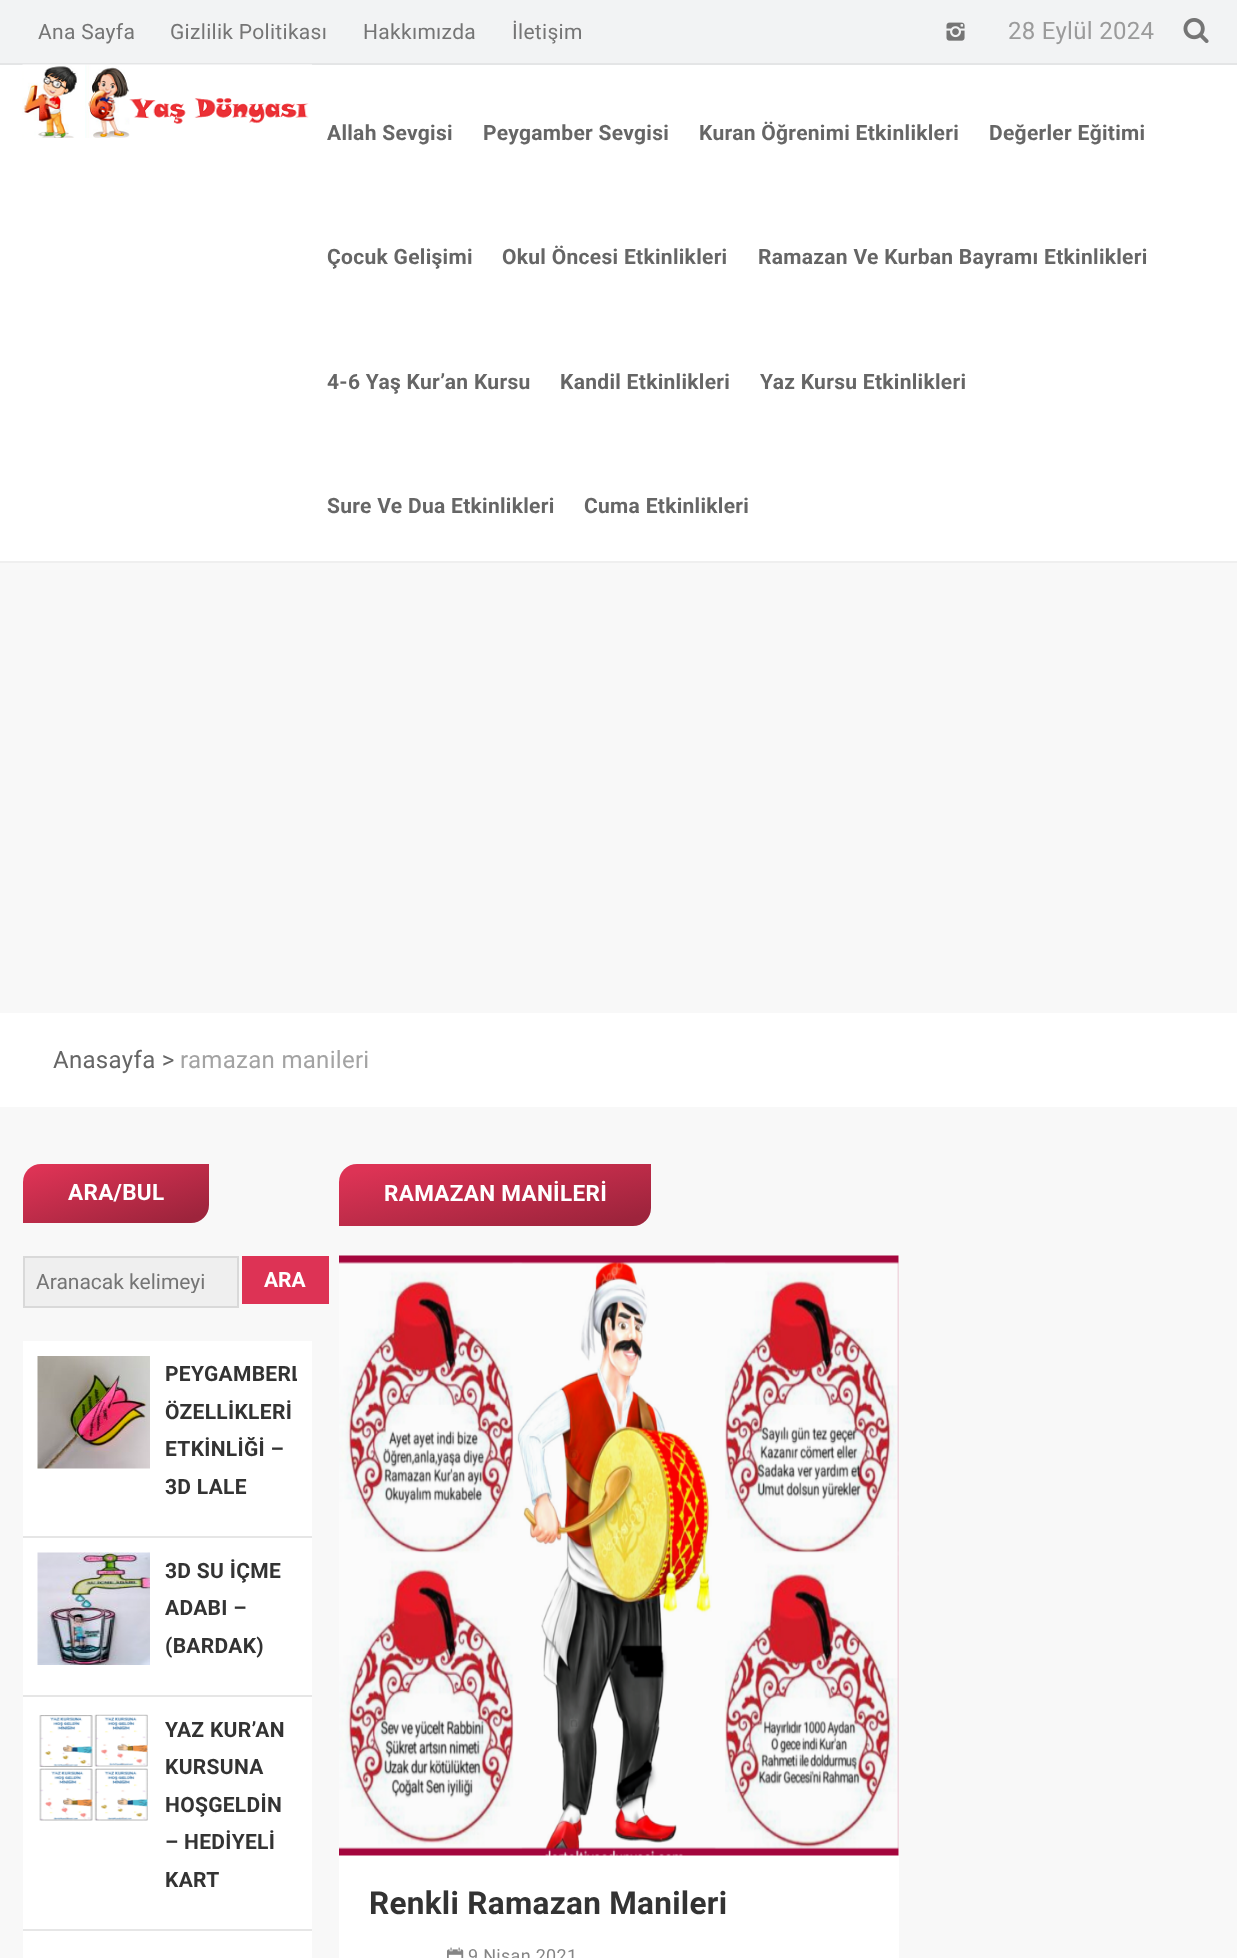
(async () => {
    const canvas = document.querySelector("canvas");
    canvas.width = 1237;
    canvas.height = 1958;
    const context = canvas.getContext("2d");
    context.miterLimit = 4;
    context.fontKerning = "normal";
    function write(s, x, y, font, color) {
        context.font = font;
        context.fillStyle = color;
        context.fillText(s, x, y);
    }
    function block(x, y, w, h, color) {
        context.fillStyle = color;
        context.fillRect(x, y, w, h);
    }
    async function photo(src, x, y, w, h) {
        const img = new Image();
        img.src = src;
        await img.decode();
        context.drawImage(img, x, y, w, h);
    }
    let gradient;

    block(0, 0, 1237, 1958, "rgb(248, 248, 248)");
    block(0, 0, 1237, 63, "rgb(242, 243, 244)");
    block(0, 63, 1237, 2, "rgb(228, 229, 230)");
    context.letterSpacing = "0.3px";
    write("Ana Sayfa", 38, 39, "21px Roboto", "rgb(117, 117, 117)");
    write("Gizlilik Politikası", 170, 39, "21px Roboto", "rgb(117, 117, 117)");
    write("Hakkımızda", 363, 39, "21px Roboto", "rgb(117, 117, 117)");
    write("İletişim", 512, 39, "21px Roboto", "rgb(117, 117, 117)");
    await photo("media/1.png", 946, 22, 19, 19);
    write("28 Eylül 2024", 1008, 39, "24px Roboto", "rgb(155, 155, 155)");
    await photo("media/2.png", 1183, 18, 26, 25);
    block(0, 65, 1237, 496, "rgb(255, 255, 255)");
    block(0, 561, 1237, 2, "rgb(239, 239, 239)");
    await photo("media/3.png", 22, 64, 290, 74);
    write("Allah Sevgisi", 327, 140, "bold 21px Roboto", "rgb(102, 102, 102)");
    write("Peygamber Sevgisi", 483, 140, "bold 21px Roboto", "rgb(102, 102, 102)");
    write("Kuran Öğrenimi Etkinlikleri", 699, 140, "bold 21px Roboto", "rgb(102, 102, 102)");
    write("Değerler Eğitimi", 989, 140, "bold 21px Roboto", "rgb(102, 102, 102)");
    write("Çocuk Gelişimi", 327, 264, "bold 21px Roboto", "rgb(102, 102, 102)");
    write("Okul Öncesi Etkinlikleri", 502, 264, "bold 21px Roboto", "rgb(102, 102, 102)");
    write("Ramazan Ve Kurban Bayramı Etkinlikleri", 758, 264, "bold 21px Roboto", "rgb(102, 102, 102)");
    write("4-6 Yaş Kur’an Kursu", 327, 389, "bold 21px Roboto", "rgb(102, 102, 102)");
    write("Kandil Etkinlikleri", 560, 389, "bold 21px Roboto", "rgb(102, 102, 102)");
    write("Yaz Kursu Etkinlikleri", 760, 389, "bold 21px Roboto", "rgb(102, 102, 102)");
    write("Sure Ve Dua Etkinlikleri", 327, 513, "bold 21px Roboto", "rgb(102, 102, 102)");
    write("Cuma Etkinlikleri", 584, 513, "bold 21px Roboto", "rgb(102, 102, 102)");
    block(0, 1013, 1237, 94, "rgb(255, 255, 255)");
    write("Anasayfa >", 53, 1068, "24px Roboto", "rgb(102, 102, 102)");
    write("ramazan manileri", 180, 1068, "24px Roboto", "rgb(163, 163, 163)");
    gradient = context.createLinearGradient(99, 1140, 132, 1246);
    gradient.addColorStop(0.08, "rgb(221, 51, 85)");
    gradient.addColorStop(0.92, "rgb(157, 36, 60)");
    context.fillStyle = gradient;
    context.beginPath();
    context.roundRect(23, 1164, 186, 59, [18, 0, 18, 0]);
    context.fill();
    write("ARA/BUL", 68, 1200, "bold 22.5px Roboto", "rgb(255, 255, 255)");
    context.fillStyle = "rgb(239, 239, 239)";
    context.beginPath();
    context.rect(24, 1257, 214, 50);
    context.fill();
    context.strokeStyle = "rgb(217, 217, 217)";
    context.lineWidth = 2;
    context.stroke();
    context.save();
    context.beginPath();
    context.rect(36, 1269, 168, 24);
    context.clip();
    context.letterSpacing = "0px";
    write("Aranacak kelimeyi", 36, 1289, "21px Roboto", "rgb(117, 117, 117)");
    context.restore();
    block(242, 1256, 87, 48, "rgb(221, 51, 85)");
    context.letterSpacing = "0px";
    write("ARA", 264, 1287, "bold 21px Roboto", "rgb(255, 255, 255)");
    block(23, 1341, 289, 195, "rgb(255, 255, 255)");
    block(23, 1536, 289, 2, "rgb(230, 230, 230)");
    await photo("media/4.png", 37, 1356, 113, 113);
    context.save();
    context.beginPath();
    context.rect(165, 1356, 132, 165);
    context.clip();
    context.letterSpacing = "0.3px";
    write("PEYGAMBERL", 165, 1381, "bold 21px Roboto", "rgb(51, 51, 51)");
    context.restore();
    context.letterSpacing = "0.3px";
    write("ÖZELLİKLERİ", 165, 1419, "bold 21px Roboto", "rgb(51, 51, 51)");
    write("ETKİNLİĞİ –", 165, 1456, "bold 21px Roboto", "rgb(51, 51, 51)");
    write("3D LALE", 165, 1494, "bold 21px Roboto", "rgb(51, 51, 51)");
    block(23, 1538, 289, 157, "rgb(255, 255, 255)");
    block(23, 1695, 289, 2, "rgb(230, 230, 230)");
    await photo("media/5.png", 37, 1552, 113, 113);
    write("3D SU İÇME", 165, 1578, "bold 21px Roboto", "rgb(51, 51, 51)");
    write("ADABI –", 165, 1615, "bold 21px Roboto", "rgb(51, 51, 51)");
    write("(BARDAK)", 165, 1653, "bold 21px Roboto", "rgb(51, 51, 51)");
    block(23, 1697, 289, 232, "rgb(255, 255, 255)");
    block(23, 1929, 289, 2, "rgb(230, 230, 230)");
    await photo("media/6.png", 39, 1714, 109, 107);
    write("YAZ KUR’AN", 165, 1737, "bold 21px Roboto", "rgb(51, 51, 51)");
    write("KURSUNA", 165, 1774, "bold 21px Roboto", "rgb(51, 51, 51)");
    write("HOŞGELDİN", 165, 1812, "bold 21px Roboto", "rgb(51, 51, 51)");
    write("– HEDİYELİ", 165, 1849, "bold 21px Roboto", "rgb(51, 51, 51)");
    write("KART", 165, 1887, "bold 21px Roboto", "rgb(51, 51, 51)");
    block(23, 1931, 289, 27, "rgb(255, 255, 255)");
    gradient = context.createLinearGradient(483, 1136, 507, 1254);
    gradient.addColorStop(0.08, "rgb(221, 51, 85)");
    gradient.addColorStop(0.92, "rgb(157, 36, 60)");
    context.fillStyle = gradient;
    context.beginPath();
    context.roundRect(339, 1164, 312, 62, [18, 0, 18, 0]);
    context.fill();
    write("RAMAZAN MANİLERİ", 384, 1201, "bold 22.5px Roboto", "rgb(255, 255, 255)");
    block(339, 1256, 560, 702, "rgb(255, 255, 255)");
    await photo("media/7.png", 339, 1255, 560, 601);
    write("Renkli Ramazan Manileri", 369, 1914, "bold 31.5px Roboto", "rgb(51, 51, 51)");
    await photo("media/8.png", 447, 1947, 17, 11);
    write("9 Nisan 2021", 468, 1962, "18px Roboto", "rgb(133, 133, 133)");
})();
